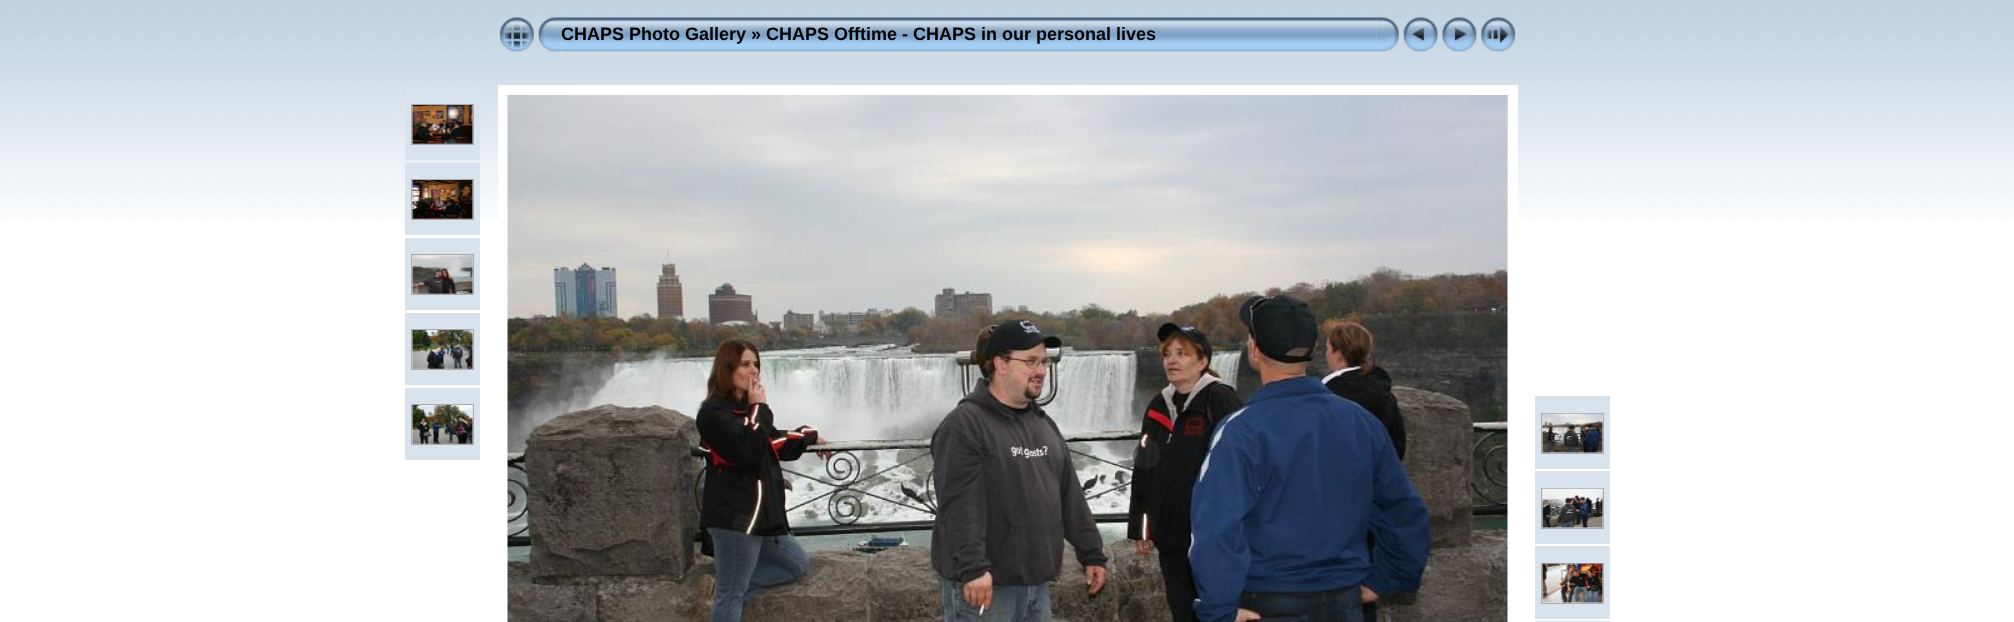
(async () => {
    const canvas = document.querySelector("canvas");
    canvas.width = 2014;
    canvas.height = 622;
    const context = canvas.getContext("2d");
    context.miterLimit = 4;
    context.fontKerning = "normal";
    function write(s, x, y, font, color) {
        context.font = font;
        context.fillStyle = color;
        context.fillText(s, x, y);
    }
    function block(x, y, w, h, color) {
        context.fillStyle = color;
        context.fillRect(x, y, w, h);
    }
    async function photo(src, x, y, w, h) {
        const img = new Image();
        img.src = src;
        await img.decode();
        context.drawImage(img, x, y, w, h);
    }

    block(0, 0, 2014, 622, "rgb(255, 255, 255)");
    await photo("media/1.png", 0, 0, 2014, 222);
    await photo("media/2.png", 499, 17, 35, 35);
    await photo("media/4.png", 561, 17, 816, 35);
    await photo("media/3.png", 538, 17, 24, 35);
    write("CHAPS Photo Gallery » CHAPS Offtime - CHAPS in our personal lives", 561, 40, "bold 18px Liberation Sans", "rgb(0, 0, 0)");
    await photo("media/5.png", 1376, 17, 23, 35);
    await photo("media/6.png", 1403, 17, 35, 35);
    await photo("media/7.png", 1442, 17, 35, 35);
    await photo("media/8.png", 1481, 17, 35, 35);
    block(405, 88, 75, 72, "rgb(216, 227, 237)");
    context.strokeStyle = "rgb(170, 170, 170)";
    context.strokeRect(411.5, 104.5, 62, 40);
    await photo("media/9.png", 412, 105, 61, 39);
    block(405, 163, 75, 72, "rgb(216, 227, 237)");
    context.strokeRect(411.5, 179.5, 62, 40);
    await photo("media/10.png", 412, 180, 61, 39);
    block(405, 238, 75, 72, "rgb(216, 227, 237)");
    context.strokeRect(411.5, 254.5, 62, 40);
    await photo("media/11.png", 412, 255, 61, 39);
    block(405, 313, 75, 72, "rgb(216, 227, 237)");
    context.strokeRect(411.5, 329.5, 62, 40);
    await photo("media/12.png", 412, 330, 61, 39);
    block(405, 388, 75, 72, "rgb(216, 227, 237)");
    context.strokeRect(411.5, 404.5, 62, 40);
    await photo("media/13.png", 412, 405, 61, 39);
    context.strokeStyle = "rgb(255, 255, 255)";
    context.lineWidth = 10;
    context.strokeRect(503, 90, 1010, 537);
    await photo("media/14.png", 507, 95, 1001, 527);
    block(1535, 396, 75, 73, "rgb(216, 227, 237)");
    context.strokeStyle = "rgb(170, 170, 170)";
    context.lineWidth = 1;
    context.strokeRect(1541.5, 413.5, 62, 40);
    await photo("media/15.png", 1542, 413, 61, 40);
    block(1535, 471, 75, 73, "rgb(216, 227, 237)");
    context.strokeRect(1541.5, 488.5, 62, 40);
    await photo("media/16.png", 1542, 488, 61, 40);
    block(1535, 546, 75, 73, "rgb(216, 227, 237)");
    context.strokeRect(1541.5, 563.5, 62, 40);
    await photo("media/17.png", 1542, 563, 61, 40);
    block(1535, 621, 75, 1, "rgb(216, 227, 237)");
})();
